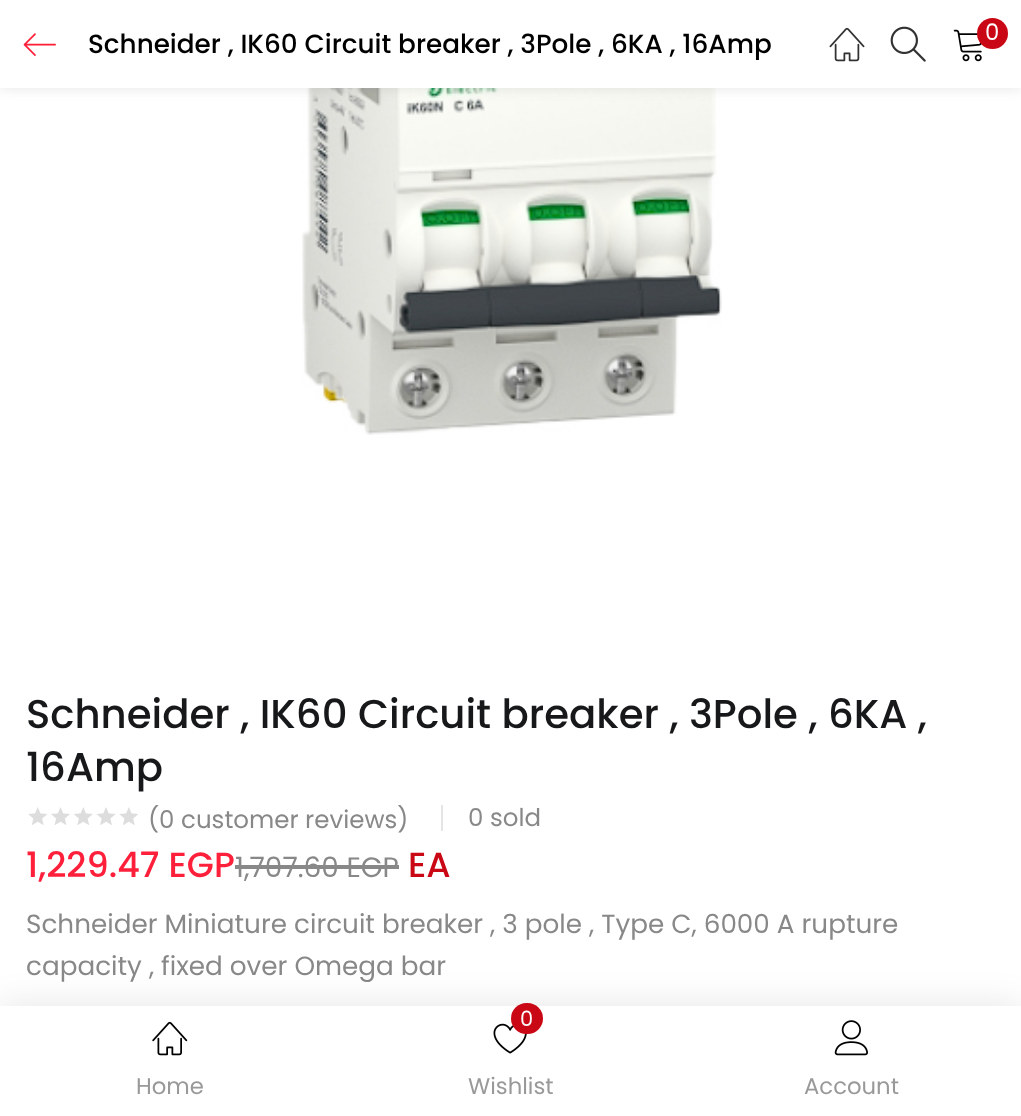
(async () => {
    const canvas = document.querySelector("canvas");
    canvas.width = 1021;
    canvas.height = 1116;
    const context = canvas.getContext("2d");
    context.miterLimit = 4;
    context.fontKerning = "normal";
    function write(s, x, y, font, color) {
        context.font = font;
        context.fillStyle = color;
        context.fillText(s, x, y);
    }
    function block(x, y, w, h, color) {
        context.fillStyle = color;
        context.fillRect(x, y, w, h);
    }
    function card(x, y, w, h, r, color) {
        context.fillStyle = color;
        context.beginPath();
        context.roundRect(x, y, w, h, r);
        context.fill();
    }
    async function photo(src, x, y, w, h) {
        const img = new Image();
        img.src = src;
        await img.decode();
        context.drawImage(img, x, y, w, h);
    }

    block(0, 0, 1021, 1116, "rgb(255, 255, 255)");
    await photo("media/5.png", 301, 88, 421, 347);
    context.fillStyle = "rgba(0, 0, 0, 0.1)";
    context.filter = "blur(7px)";
    context.beginPath();
    context.rect(0, 0, 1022, 88);
    context.fill();
    context.filter = "none";
    block(0, 0, 1021, 88, "rgb(255, 255, 255)");
    await photo("media/1.png", 23, 33, 33, 23);
    write("Schneider , IK60 Circuit breaker , 3Pole , 6KA , 16Amp", 88, 53, "500 26.25px Poppins", "rgb(0, 0, 0)");
    await photo("media/2.png", 829, 27, 36, 35);
    await photo("media/3.png", 890, 26, 36, 36);
    await photo("media/4.png", 953, 29, 29, 33);
    context.fillStyle = "rgb(202, 8, 21)";
    context.beginPath();
    context.arc(992.5, 33.5, 15.5, 0, Math.PI * 2);
    context.fill();
    write("0", 985, 40, "22.75px Poppins", "rgb(255, 255, 255)");
    write("Schneider , IK60 Circuit breaker , 3Pole , 6KA ,", 26, 728, "500 40.25px Poppins", "rgb(23, 24, 26)");
    write("16Amp", 26, 781, "500 40.25px Poppins", "rgb(23, 24, 26)");
    await photo("media/6.png", 28, 807, 110, 18);
    write("(0 customer reviews)", 148, 828, "24.5px Poppins", "rgb(136, 136, 136)");
    block(441, 805, 2, 26, "rgb(229, 229, 229)");
    write("0 sold", 468, 826, "24.5px Poppins", "rgb(136, 136, 136)");
    write("1,229.47 EGP", 26, 877, "500 35px Poppins", "rgb(254, 31, 58)");
    write("1,707.60 EGP", 235, 877, "28px Poppins", "rgb(136, 136, 136)");
    block(235, 865, 164, 4, "rgb(136, 136, 136)");
    write("EA", 408, 877, "500 35px Poppins", "rgb(202, 8, 21)");
    write("Schneider Miniature circuit breaker , 3 pole , Type C, 6000 A rupture", 26, 933, "26.25px Poppins", "rgb(136, 136, 136)");
    write("capacity , fixed over Omega bar", 26, 975, "26.25px Poppins", "rgb(136, 136, 136)");
    context.fillStyle = "rgba(0, 0, 0, 0.1)";
    context.filter = "blur(17.5px)";
    context.beginPath();
    context.rect(0, 1006, 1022, 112);
    context.fill();
    context.filter = "none";
    block(0, 1006, 1021, 110, "rgb(255, 255, 255)");
    await photo("media/7.png", 152, 1021, 36, 35);
    write("Home", 136, 1094, "22.75px Poppins", "rgb(153, 153, 153)");
    await photo("media/8.png", 493, 1023, 34, 31);
    card(511, 1003, 32, 31, 15.5, "rgb(202, 8, 21)");
    write("0", 520, 1026, "21px Poppins", "rgb(255, 255, 255)");
    write("Wishlist", 468, 1094, "22.75px Poppins", "rgb(153, 153, 153)");
    await photo("media/9.png", 834, 1020, 34, 36);
    write("Account", 804, 1094, "22.75px Poppins", "rgb(153, 153, 153)");
})();
